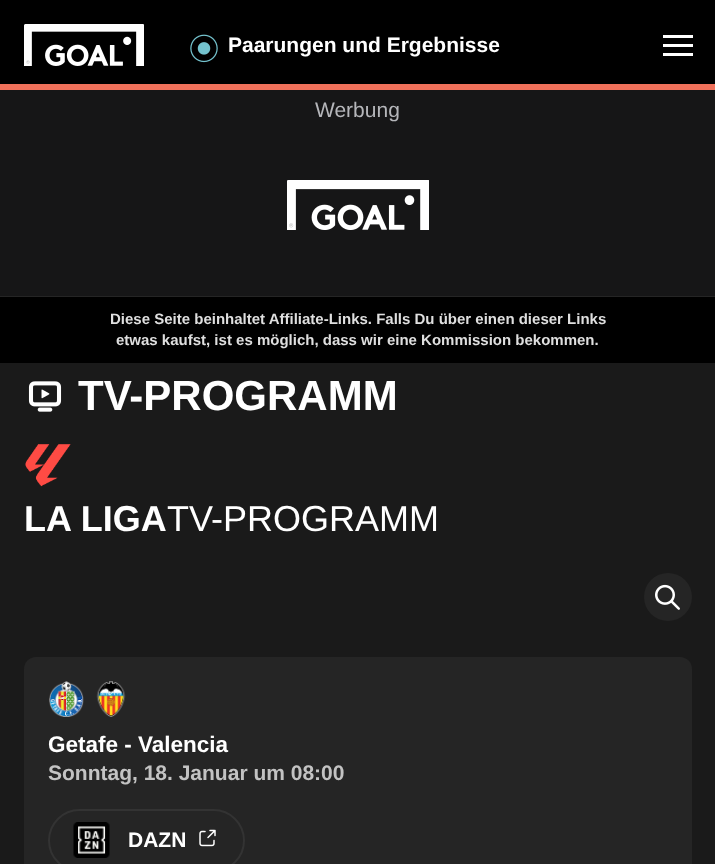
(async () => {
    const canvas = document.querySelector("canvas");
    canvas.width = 715;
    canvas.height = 864;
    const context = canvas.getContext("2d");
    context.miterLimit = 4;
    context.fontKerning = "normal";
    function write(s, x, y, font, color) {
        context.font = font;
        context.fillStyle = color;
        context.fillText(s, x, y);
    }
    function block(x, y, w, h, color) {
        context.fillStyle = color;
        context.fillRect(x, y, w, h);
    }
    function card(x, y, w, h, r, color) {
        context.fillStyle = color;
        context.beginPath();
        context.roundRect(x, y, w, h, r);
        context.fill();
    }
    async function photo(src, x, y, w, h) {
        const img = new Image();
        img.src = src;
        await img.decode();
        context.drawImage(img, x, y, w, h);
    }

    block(0, 0, 715, 864, "rgb(37, 37, 37)");
    block(0, 0, 715, 84, "rgb(0, 0, 0)");
    block(0, 84, 715, 6, "rgb(240, 112, 90)");
    await photo("media/1.png", 24, 24, 120, 42);
    await photo("media/2.png", 190, 34, 28, 29);
    write("Paarungen und Ergebnisse", 228, 52, "bold 21px Liberation Sans", "rgb(255, 255, 255)");
    block(663, 35, 30, 3, "rgb(255, 255, 255)");
    block(663, 44, 30, 3, "rgb(255, 255, 255)");
    block(663, 53, 30, 3, "rgb(255, 255, 255)");
    block(0, 90, 715, 206, "rgb(22, 22, 23)");
    write("Werbung", 315, 117, "21px Liberation Sans", "rgb(181, 182, 186)");
    await photo("media/3.png", 287, 180, 142, 50);
    block(0, 297, 715, 66, "rgb(0, 0, 0)");
    write("Diese Seite beinhaltet Affiliate-Links. Falls Du über einen dieser Links", 110, 324, "bold 15px Liberation Sans", "rgb(223, 223, 223)");
    write("etwas kaufst, ist es möglich, dass wir eine Kommission bekommen.", 116, 345, "bold 15px Liberation Sans", "rgb(223, 223, 223)");
    block(0, 363, 715, 501, "rgb(26, 26, 26)");
    await photo("media/4.png", 28, 381, 34, 31);
    write("TV-PROGRAMM", 78, 410, "bold 42px Liberation Sans", "rgb(255, 255, 255)");
    await photo("media/5.png", 25, 444, 46, 43);
    write("LA LIGA", 24, 531, "bold 36px Liberation Sans", "rgb(255, 255, 255)");
    write("TV-PROGRAMM", 167, 531, "36px Liberation Sans", "rgb(255, 255, 255)");
    context.fillStyle = "rgb(37, 37, 37)";
    context.beginPath();
    context.arc(668, 597, 24, 0, Math.PI * 2);
    context.fill();
    await photo("media/6.png", 655, 584, 25, 26);
    card(24, 657, 668, 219, 12, "rgb(37, 37, 37)");
    await photo("media/7.png", 49, 681, 35, 36);
    await photo("media/8.png", 96, 681, 30, 36);
    write("Getafe - Valencia", 48, 752, "bold 22.5px Liberation Sans", "rgb(255, 255, 255)");
    write("Sonntag, 18. Januar um 08:00", 48, 780, "bold 21px Liberation Sans", "rgb(195, 195, 195)");
    context.beginPath();
    context.roundRect(49, 810, 195, 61, 30.5);
    context.strokeStyle = "rgb(51, 51, 51)";
    context.lineWidth = 2;
    context.stroke();
    await photo("media/9.png", 73, 822, 37, 36);
    write("DAZN", 128, 847, "bold 21px Liberation Sans", "rgb(255, 255, 255)");
    await photo("media/10.png", 199, 829, 17, 18);
})();
